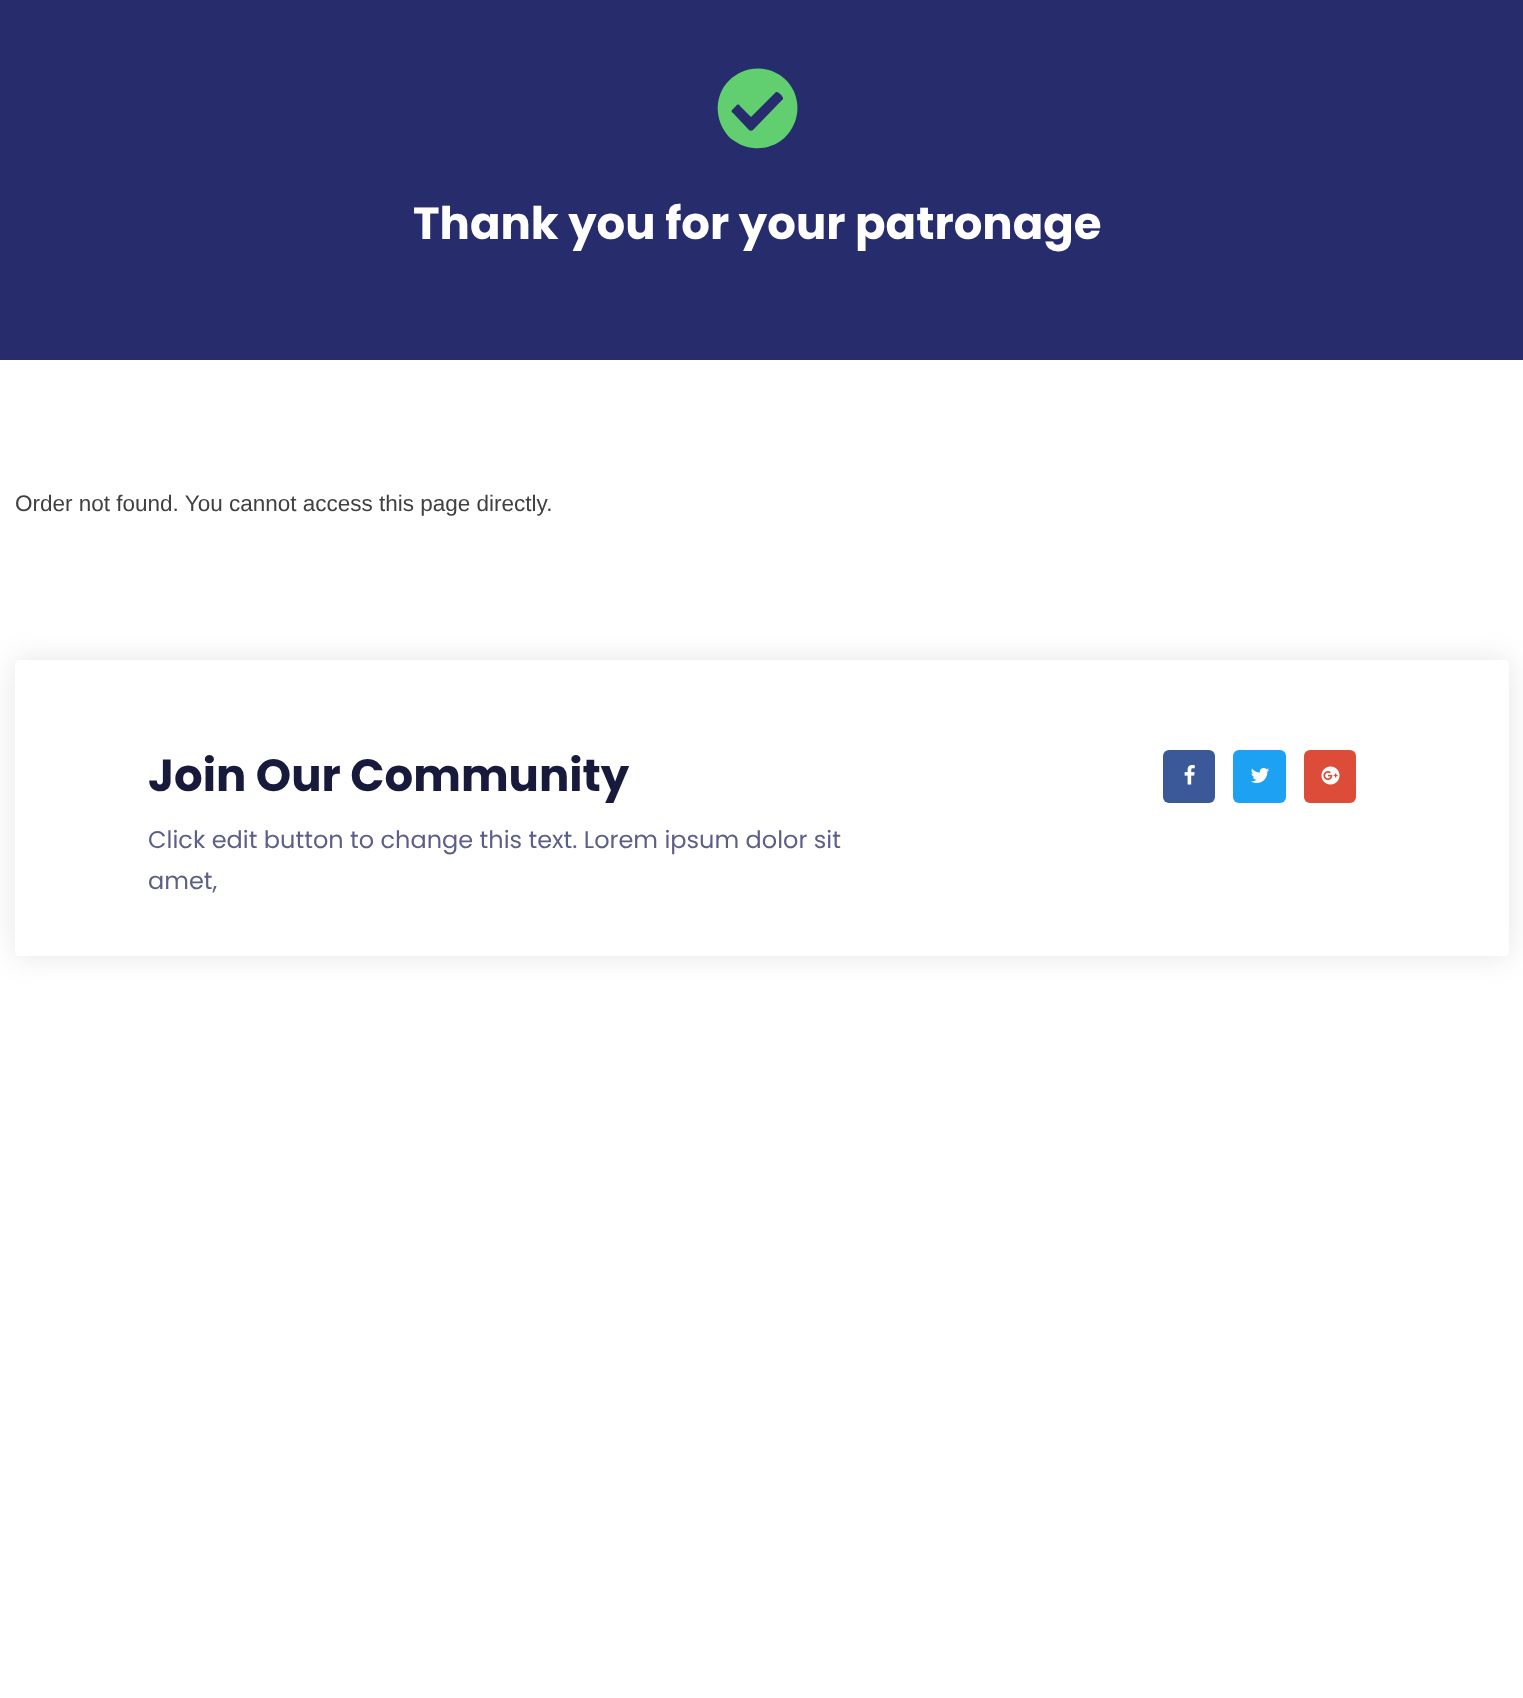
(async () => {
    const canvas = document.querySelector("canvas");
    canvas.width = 1523;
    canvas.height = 1698;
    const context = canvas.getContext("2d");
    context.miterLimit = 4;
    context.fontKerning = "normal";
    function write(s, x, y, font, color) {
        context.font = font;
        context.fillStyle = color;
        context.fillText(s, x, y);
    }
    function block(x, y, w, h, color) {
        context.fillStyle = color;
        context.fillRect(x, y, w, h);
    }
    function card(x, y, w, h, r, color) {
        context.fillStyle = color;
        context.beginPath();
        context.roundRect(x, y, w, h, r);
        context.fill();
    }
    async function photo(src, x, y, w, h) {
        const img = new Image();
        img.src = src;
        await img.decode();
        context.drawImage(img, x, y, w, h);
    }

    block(0, 0, 1523, 1698, "rgb(255, 255, 255)");
    block(0, 0, 1523, 360, "rgb(39, 44, 108)");
    context.fillStyle = "rgb(97, 206, 112)";
    context.beginPath();
    context.moveTo(786, 80);
    context.bezierCurveTo(812, 107, 791, 152, 753, 148);
    context.bezierCurveTo(744, 147, 736, 143, 729, 137);
    context.bezierCurveTo(723, 130, 719, 122, 718, 113);
    context.bezierCurveTo(714, 75, 759, 54, 786, 80);
    context.closePath();
    context.moveTo(753, 130);
    context.lineTo(783, 99);
    context.bezierCurveTo(784, 97, 778, 91, 776, 92);
    context.lineTo(751, 117);
    context.lineTo(740, 106);
    context.bezierCurveTo(739, 104, 737, 104, 736, 106);
    context.lineTo(733, 109);
    context.bezierCurveTo(731, 111, 731, 112, 733, 113);
    context.lineTo(749, 130);
    context.bezierCurveTo(750, 131, 752, 131, 753, 130);
    context.closePath();
    context.fill();
    write("Thank you for your patronage", 413, 239, "bold 45px Poppins", "rgb(255, 255, 255)");
    write("Order not found. You cannot access this page directly.", 15, 511, "22.5px Liberation Sans", "rgb(64, 64, 64)");
    context.save();
    context.beginPath();
    context.moveTo(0, 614);
    context.lineTo(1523, 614);
    context.lineTo(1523, 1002);
    context.lineTo(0, 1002);
    context.closePath();
    context.moveTo(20, 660);
    context.lineTo(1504, 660);
    context.bezierCurveTo(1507, 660, 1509, 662, 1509, 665);
    context.lineTo(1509, 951);
    context.bezierCurveTo(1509, 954, 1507, 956, 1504, 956);
    context.lineTo(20, 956);
    context.bezierCurveTo(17, 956, 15, 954, 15, 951);
    context.lineTo(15, 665);
    context.bezierCurveTo(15, 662, 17, 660, 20, 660);
    context.closePath();
    context.clip("evenodd");
    context.fillStyle = "rgba(0, 0, 0, 0.1)";
    context.filter = "blur(15px)";
    context.beginPath();
    context.roundRect(15, 660, 1494, 296, 5);
    context.fill();
    context.filter = "none";
    context.restore();
    write("Join Our Community", 148, 791, "bold 45px Poppins", "rgb(23, 26, 59)");
    write("Click edit button to change this text. Lorem ipsum dolor sit", 148, 848, "24px Poppins", "rgb(92, 95, 136)");
    write("amet,", 148, 889, "24px Poppins", "rgb(92, 95, 136)");
    card(1163, 750, 52, 53, 6, "rgb(59, 89, 152)");
    await photo("media/1.png", 1184, 765, 11, 20);
    card(1233, 750, 53, 53, 6, "rgb(29, 161, 242)");
    await photo("media/2.png", 1251, 768, 19, 15);
    card(1304, 750, 52, 53, 6, "rgb(221, 75, 57)");
    await photo("media/3.png", 1321, 766, 19, 19);
})();
